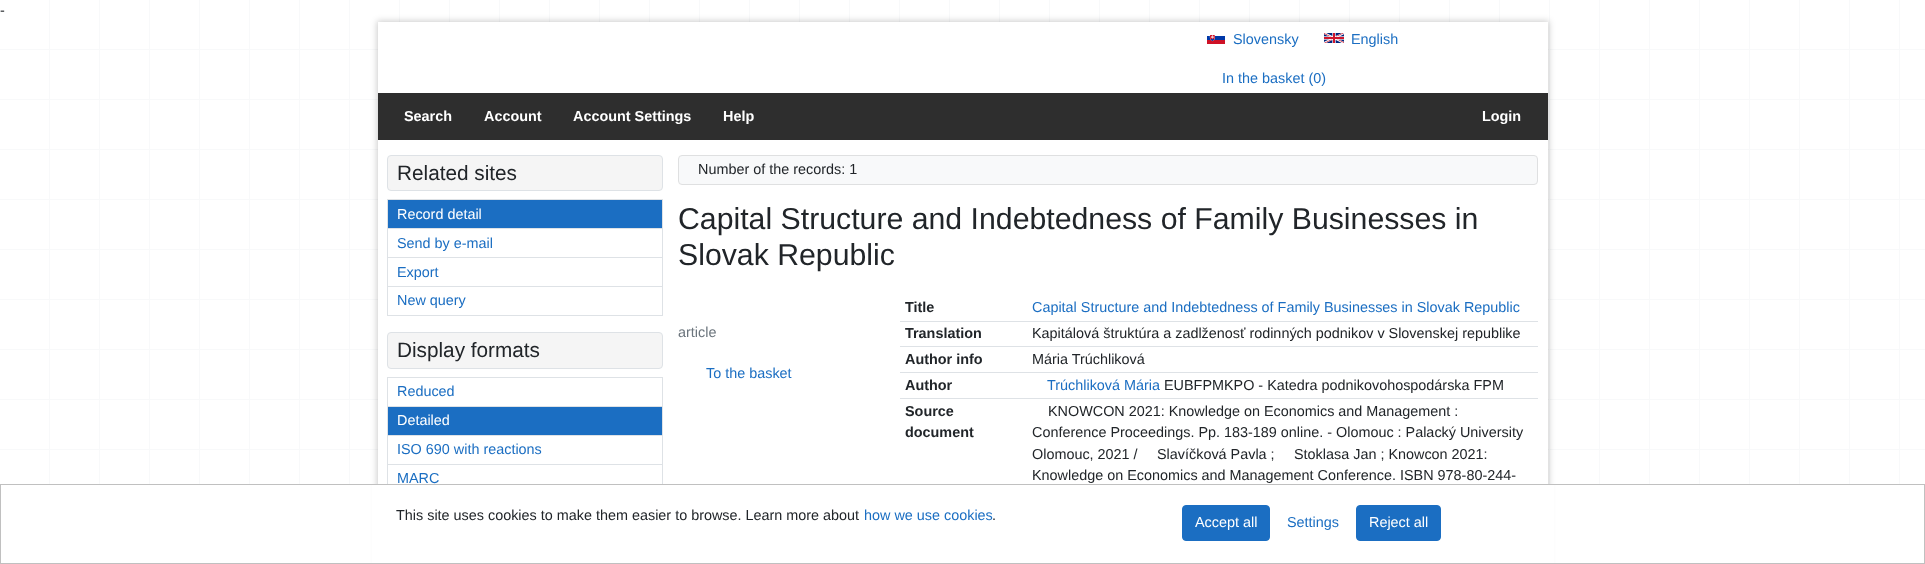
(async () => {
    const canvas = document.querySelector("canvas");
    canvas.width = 1925;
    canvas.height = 564;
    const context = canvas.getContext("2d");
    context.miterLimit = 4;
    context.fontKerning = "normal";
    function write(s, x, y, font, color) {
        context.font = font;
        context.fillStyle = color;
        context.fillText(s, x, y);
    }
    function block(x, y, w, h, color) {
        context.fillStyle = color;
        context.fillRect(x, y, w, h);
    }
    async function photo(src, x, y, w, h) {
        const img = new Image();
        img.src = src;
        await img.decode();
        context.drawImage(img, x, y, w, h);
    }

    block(0, 0, 1925, 564, "rgb(255, 255, 255)");
    await photo("media/1.png", 49, 0, 1851, 484);
    block(0, 49, 1925, 1, "rgb(248, 249, 250)");
    block(0, 99, 1925, 1, "rgb(248, 249, 250)");
    block(0, 149, 1925, 1, "rgb(248, 249, 250)");
    block(0, 199, 1925, 1, "rgb(248, 249, 250)");
    block(0, 249, 1925, 1, "rgb(248, 249, 250)");
    block(0, 299, 1925, 1, "rgb(248, 249, 250)");
    block(0, 349, 1925, 1, "rgb(248, 249, 250)");
    block(0, 399, 1925, 1, "rgb(248, 249, 250)");
    block(0, 449, 1925, 1, "rgb(248, 249, 250)");
    write("-", 0, 15, "14.4px Liberation Sans", "rgb(33, 37, 41)");
    context.fillStyle = "rgba(0, 0, 0, 0.2)";
    context.filter = "blur(3px)";
    context.beginPath();
    context.rect(377, 21, 1172, 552);
    context.fill();
    context.filter = "none";
    block(378, 22, 1170, 462, "rgb(255, 255, 255)");
    await photo("media/2.png", 1207, 35, 18, 9);
    write("Slovensky", 1233, 44, "14.4px Liberation Sans", "rgb(27, 110, 194)");
    await photo("media/3.png", 1324, 33, 20, 10);
    write("English", 1351, 44, "14.4px Liberation Sans", "rgb(27, 110, 194)");
    write("In the basket (0)", 1222, 83, "14.4px Liberation Sans", "rgb(27, 110, 194)");
    block(378, 93, 1170, 47, "rgb(46, 46, 46)");
    write("Search", 404, 121, "bold 14.4px Liberation Sans", "rgb(255, 255, 255)");
    write("Account", 484, 121, "bold 14.4px Liberation Sans", "rgb(255, 255, 255)");
    write("Account Settings", 573, 121, "bold 14.4px Liberation Sans", "rgb(255, 255, 255)");
    write("Help", 723, 121, "bold 14.4px Liberation Sans", "rgb(255, 255, 255)");
    write("Login", 1482, 121, "bold 14.4px Liberation Sans", "rgb(255, 255, 255)");
    context.fillStyle = "rgb(245, 245, 245)";
    context.beginPath();
    context.roundRect(387.5, 155.5, 275, 35, 3.5);
    context.fill();
    context.strokeStyle = "rgb(222, 226, 230)";
    context.stroke();
    write("Related sites", 397, 180, "20.75px Liberation Sans", "rgb(33, 37, 41)");
    block(387, 199, 276, 1, "rgb(222, 226, 230)");
    block(662, 199, 1, 29, "rgb(222, 226, 230)");
    block(387, 199, 1, 29, "rgb(222, 226, 230)");
    block(388, 200, 274, 28, "rgb(27, 110, 194)");
    write("Record detail", 397, 219, "14.4px Liberation Sans", "rgb(255, 255, 255)");
    block(387, 228, 276, 1, "rgb(222, 226, 230)");
    block(662, 228, 1, 29, "rgb(222, 226, 230)");
    block(387, 228, 1, 29, "rgb(222, 226, 230)");
    write("Send by e-mail", 397, 248, "14.4px Liberation Sans", "rgb(27, 110, 194)");
    block(387, 257, 276, 1, "rgb(222, 226, 230)");
    block(662, 257, 1, 29, "rgb(222, 226, 230)");
    block(387, 257, 1, 29, "rgb(222, 226, 230)");
    write("Export", 397, 277, "14.4px Liberation Sans", "rgb(27, 110, 194)");
    context.strokeRect(387.5, 286.5, 275, 29);
    write("New query", 397, 305, "14.4px Liberation Sans", "rgb(27, 110, 194)");
    context.fillStyle = "rgb(245, 245, 245)";
    context.beginPath();
    context.roundRect(387.5, 332.5, 275, 36, 3.5);
    context.fill();
    context.stroke();
    write("Display formats", 397, 357, "20.75px Liberation Sans", "rgb(33, 37, 41)");
    block(387, 377, 276, 1, "rgb(222, 226, 230)");
    block(662, 377, 1, 29, "rgb(222, 226, 230)");
    block(387, 377, 1, 29, "rgb(222, 226, 230)");
    write("Reduced", 397, 396, "14.4px Liberation Sans", "rgb(27, 110, 194)");
    block(387, 406, 276, 1, "rgb(222, 226, 230)");
    block(662, 406, 1, 29, "rgb(222, 226, 230)");
    block(387, 406, 1, 29, "rgb(222, 226, 230)");
    block(388, 407, 274, 28, "rgb(27, 110, 194)");
    write("Detailed", 397, 425, "14.4px Liberation Sans", "rgb(255, 255, 255)");
    block(387, 435, 276, 1, "rgb(222, 226, 230)");
    block(662, 435, 1, 29, "rgb(222, 226, 230)");
    block(387, 435, 1, 29, "rgb(222, 226, 230)");
    write("ISO 690 with reactions", 397, 454, "14.4px Liberation Sans", "rgb(27, 110, 194)");
    context.strokeRect(387.5, 464.5, 275, 29);
    write("MARC", 397, 483, "14.4px Liberation Sans", "rgb(27, 110, 194)");
    context.fillStyle = "rgb(248, 249, 250)";
    context.beginPath();
    context.roundRect(678.5, 155.5, 859, 29, 3.5);
    context.fill();
    context.strokeStyle = "rgb(223, 224, 225)";
    context.stroke();
    write("Number of the records: 1", 698, 174, "14.4px Liberation Sans", "rgb(33, 37, 41)");
    write("Capital Structure and Indebtedness of Family Businesses in", 678, 229, "30.25px Liberation Sans", "rgb(33, 37, 41)");
    write("Slovak Republic", 678, 265, "30.25px Liberation Sans", "rgb(33, 37, 41)");
    write("article", 678, 337, "14.4px Liberation Sans", "rgb(108, 117, 125)");
    write("To the basket", 706, 378, "14.4px Liberation Sans", "rgb(27, 110, 194)");
    write("Title", 905, 312, "bold 14.4px Liberation Sans", "rgb(33, 37, 41)");
    write("Capital Structure and Indebtedness of Family Businesses in Slovak Republic", 1032, 312, "14.4px Liberation Sans", "rgb(27, 110, 194)");
    write("Translation", 905, 338, "bold 14.4px Liberation Sans", "rgb(33, 37, 41)");
    block(900, 321, 638, 1, "rgb(222, 226, 230)");
    write("Kapitálová štruktúra a zadlženosť rodinných podnikov v Slovenskej republike", 1032, 338, "14.4px Liberation Sans", "rgb(33, 37, 41)");
    write("Author info", 905, 364, "bold 14.4px Liberation Sans", "rgb(33, 37, 41)");
    block(900, 346, 638, 1, "rgb(222, 226, 230)");
    write("Mária Trúchliková", 1032, 364, "14.4px Liberation Sans", "rgb(33, 37, 41)");
    write("Author", 905, 390, "bold 14.4px Liberation Sans", "rgb(33, 37, 41)");
    block(900, 372, 638, 1, "rgb(222, 226, 230)");
    write("Trúchliková Mária", 1047, 390, "14.4px Liberation Sans", "rgb(27, 110, 194)");
    write("EUBFPMKPO - Katedra podnikovohospodárska FPM", 1164, 390, "14.4px Liberation Sans", "rgb(33, 37, 41)");
    write("Source", 905, 416, "bold 14.4px Liberation Sans", "rgb(33, 37, 41)");
    write("document", 905, 437, "bold 14.4px Liberation Sans", "rgb(33, 37, 41)");
    block(900, 398, 638, 1, "rgb(222, 226, 230)");
    write("KNOWCON 2021: Knowledge on Economics and Management :", 1048, 416, "14.4px Liberation Sans", "rgb(33, 37, 41)");
    write("Conference Proceedings. Pp. 183-189 online. - Olomouc : Palacký University", 1032, 437, "14.4px Liberation Sans", "rgb(33, 37, 41)");
    write("Olomouc, 2021 /", 1032, 459, "14.4px Liberation Sans", "rgb(33, 37, 41)");
    write("Slavíčková Pavla ;", 1157, 459, "14.4px Liberation Sans", "rgb(33, 37, 41)");
    write("Stoklasa Jan ; Knowcon 2021:", 1294, 459, "14.4px Liberation Sans", "rgb(33, 37, 41)");
    write("Knowledge on Economics and Management Conference. ISBN 978-80-244-", 1032, 480, "14.4px Liberation Sans", "rgb(33, 37, 41)");
    block(372, 485, 1182, 78, "rgb(255, 255, 255)");
    context.strokeStyle = "rgb(192, 192, 192)";
    context.strokeRect(0.5, 484.5, 1924, 79);
    write("This site uses cookies to make them easier to browse. Learn more about", 396, 520, "14.4px Liberation Sans", "rgb(33, 37, 41)");
    write("how we use cookies", 864, 520, "14.4px Liberation Sans", "rgb(27, 110, 194)");
    write(".", 992, 520, "14.4px Liberation Sans", "rgb(33, 37, 41)");
    context.fillStyle = "rgb(27, 110, 194)";
    context.beginPath();
    context.roundRect(1182.5, 505.5, 87, 35, 3.5);
    context.fill();
    context.strokeStyle = "rgb(27, 110, 194)";
    context.stroke();
    write("Accept all", 1195, 527, "14.4px Liberation Sans", "rgb(255, 255, 255)");
    write("Settings", 1287, 527, "14.4px Liberation Sans", "rgb(27, 110, 194)");
    context.beginPath();
    context.roundRect(1356.5, 505.5, 84, 35, 3.5);
    context.fill();
    context.stroke();
    write("Reject all", 1369, 527, "14.4px Liberation Sans", "rgb(255, 255, 255)");
})();
